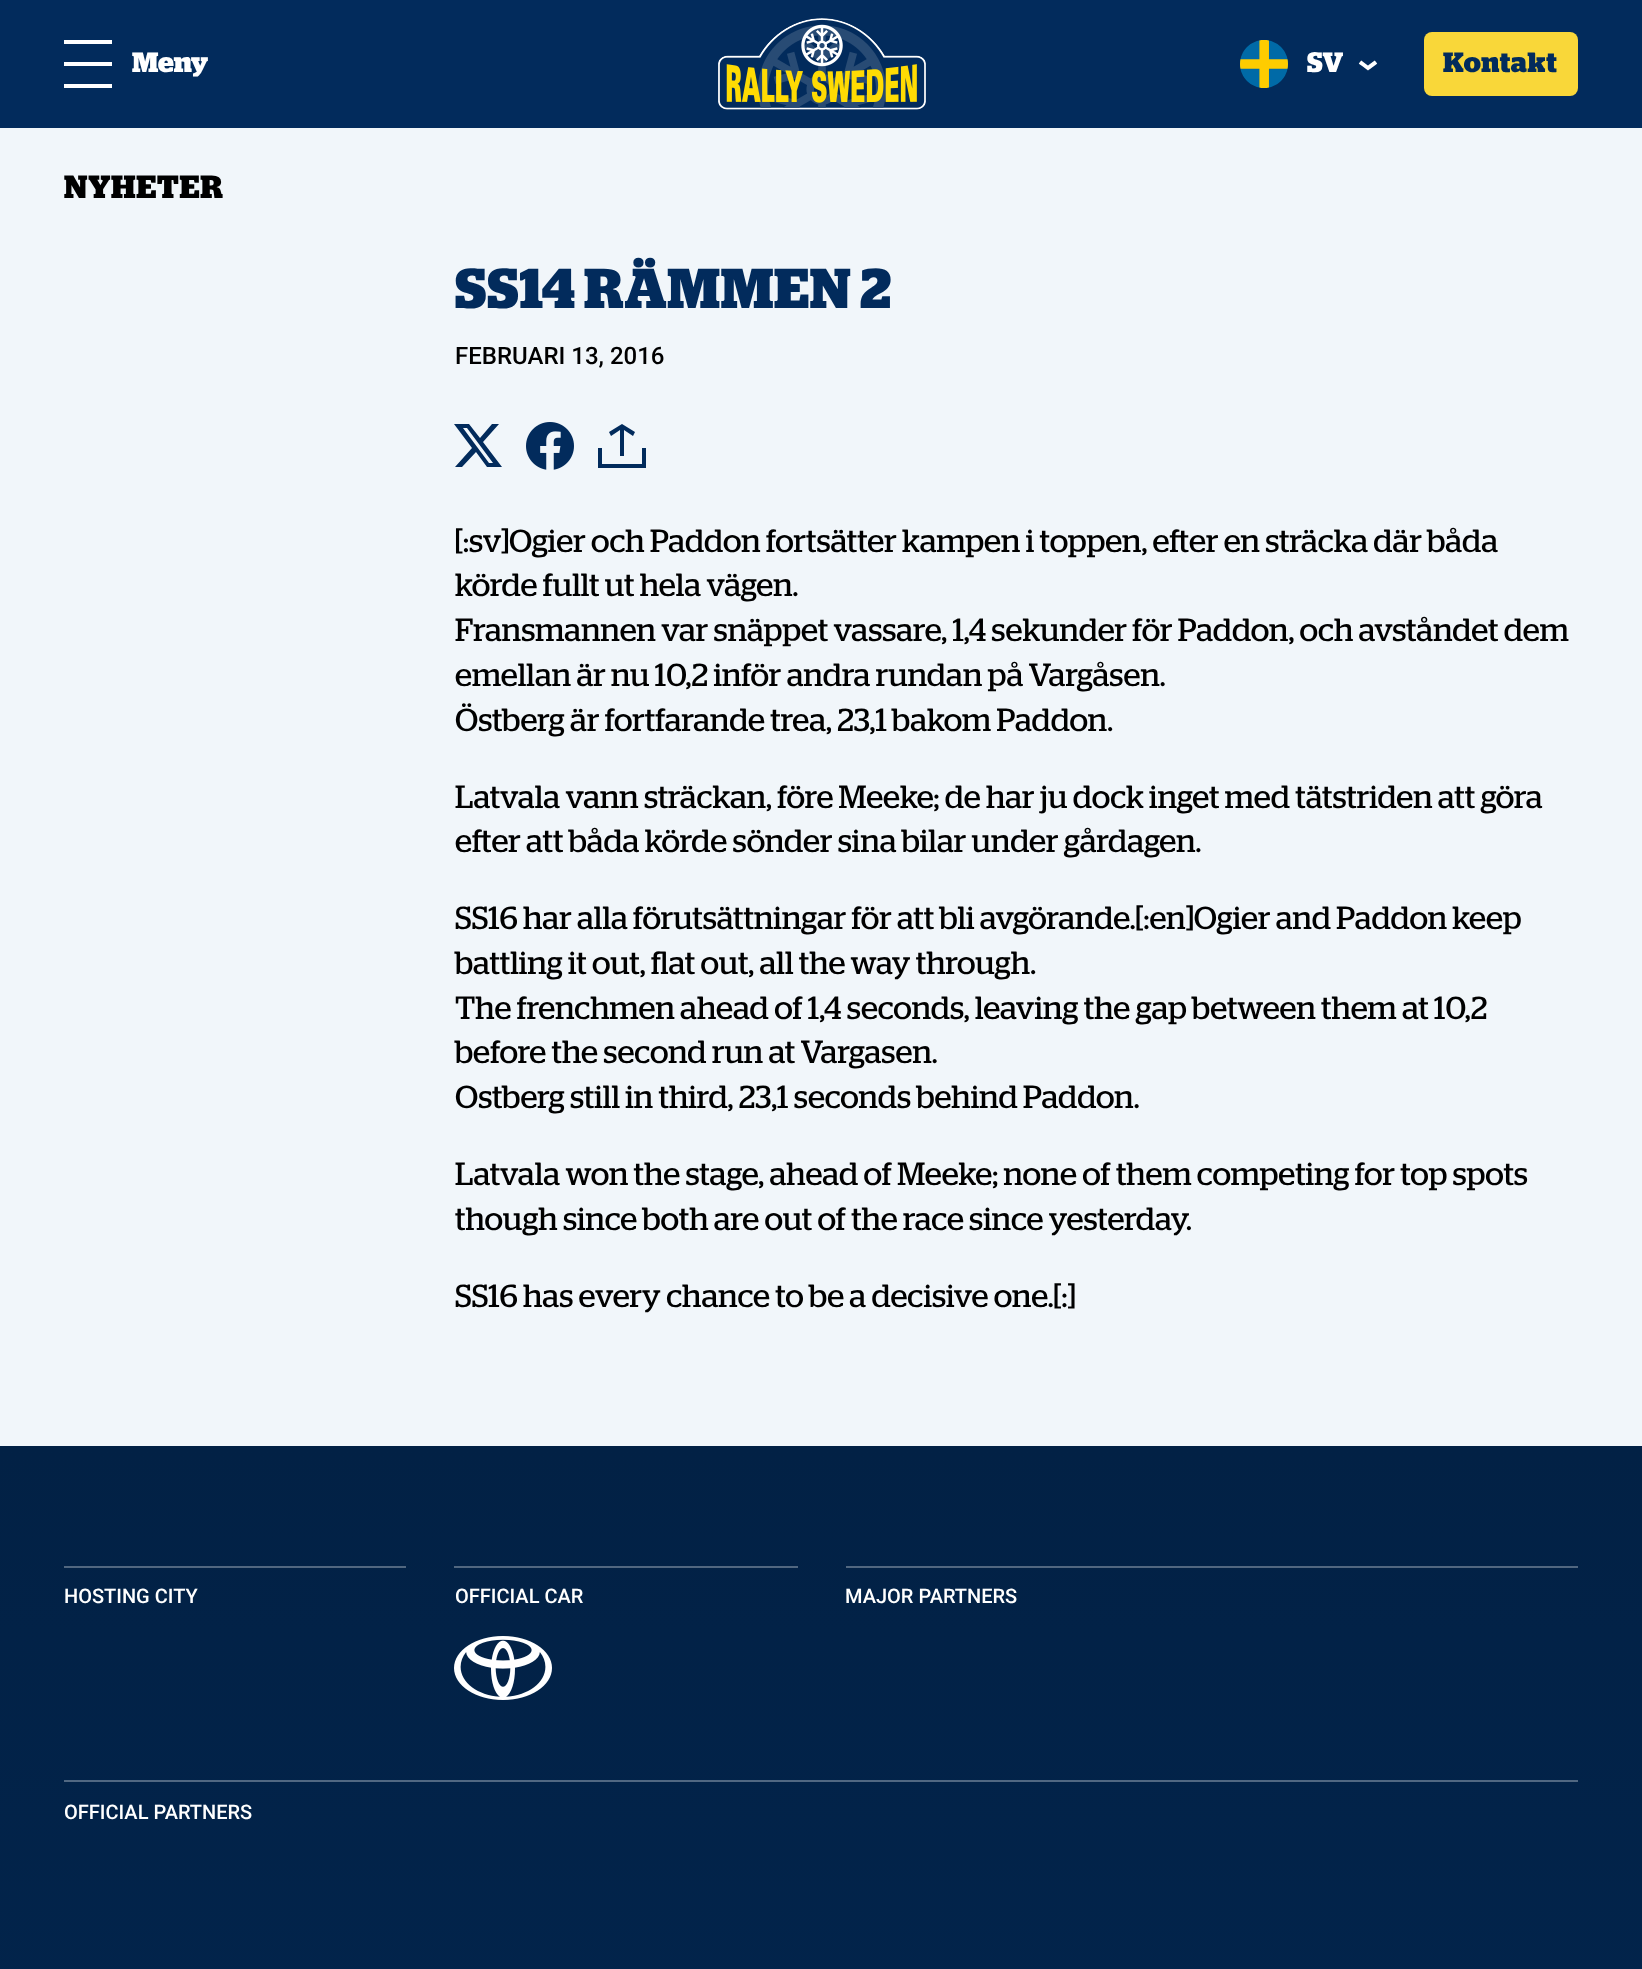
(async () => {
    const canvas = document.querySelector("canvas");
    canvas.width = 1642;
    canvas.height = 1969;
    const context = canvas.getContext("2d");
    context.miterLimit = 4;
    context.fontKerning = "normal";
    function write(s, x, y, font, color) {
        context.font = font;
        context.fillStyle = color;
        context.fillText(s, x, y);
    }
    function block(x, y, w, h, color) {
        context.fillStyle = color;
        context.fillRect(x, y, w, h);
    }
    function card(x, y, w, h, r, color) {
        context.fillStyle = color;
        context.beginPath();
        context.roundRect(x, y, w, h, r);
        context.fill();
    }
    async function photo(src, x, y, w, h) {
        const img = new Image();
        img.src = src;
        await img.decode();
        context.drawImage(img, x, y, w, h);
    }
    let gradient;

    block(0, 0, 1642, 1969, "rgb(241, 246, 250)");
    block(0, 0, 1642, 128, "rgb(2, 43, 92)");
    block(64, 40, 48, 4, "rgb(255, 255, 255)");
    block(64, 62, 48, 4, "rgb(255, 255, 255)");
    block(64, 84, 48, 4, "rgb(255, 255, 255)");
    write("Meny", 132, 72, "bold 28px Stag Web", "rgb(255, 255, 255)");
    await photo("media/1.png", 718, 18, 208, 92);
    await photo("media/2.png", 1240, 40, 48, 48);
    write("SV", 1307, 72, "bold 28px Stag Web", "rgb(255, 255, 255)");
    await photo("media/3.png", 1358, 60, 20, 11);
    card(1424, 32, 154, 64, 8, "rgb(249, 215, 57)");
    context.letterSpacing = "0.75px";
    write("Kontakt", 1443, 72, "bold 28px Stag Web", "rgb(2, 43, 92)");
    write("NYHETER", 64, 198, "bold 32px Stag Web", "rgb(0, 0, 0)");
    write("SS14 RÄMMEN 2", 455, 308, "bold 56px Stag Web", "rgb(2, 43, 92)");
    context.letterSpacing = "0px";
    write("FEBRUARI 13, 2016", 455, 364, "500 24px Roboto", "rgb(0, 0, 0)");
    context.fillStyle = "rgb(2, 43, 92)";
    context.beginPath();
    context.moveTo(492, 424);
    context.lineTo(499, 424);
    context.lineTo(483, 442);
    context.lineTo(502, 467);
    context.lineTo(487, 467);
    context.lineTo(476, 452);
    context.lineTo(462, 467);
    context.lineTo(455, 467);
    context.lineTo(472, 448);
    context.lineTo(454, 424);
    context.lineTo(469, 424);
    context.lineTo(480, 438);
    context.closePath();
    context.moveTo(489, 463);
    context.lineTo(493, 463);
    context.lineTo(467, 428);
    context.lineTo(463, 428);
    context.closePath();
    context.fill();
    await photo("media/4.png", 526, 422, 48, 48);
    context.beginPath();
    context.moveTo(598, 468);
    context.lineTo(598, 448);
    context.lineTo(602, 448);
    context.lineTo(602, 464);
    context.lineTo(642, 464);
    context.lineTo(642, 448);
    context.lineTo(646, 448);
    context.lineTo(646, 468);
    context.closePath();
    context.moveTo(622, 424);
    context.lineTo(635, 432);
    context.lineTo(633, 436);
    context.lineTo(624, 430);
    context.lineTo(624, 456);
    context.lineTo(620, 456);
    context.lineTo(620, 430);
    context.lineTo(611, 436);
    context.lineTo(609, 432);
    context.closePath();
    context.fill("evenodd");
    write("[:sv]Ogier och Paddon fortsätter kampen i toppen, efter en sträcka där båda", 455, 552, "32px Stag Web", "rgb(0, 0, 0)");
    write("körde fullt ut hela vägen.", 455, 596, "32px Stag Web", "rgb(0, 0, 0)");
    write("Fransmannen var snäppet vassare, 1,4 sekunder för Paddon, och avståndet dem", 455, 641, "32px Stag Web", "rgb(0, 0, 0)");
    write("emellan är nu 10,2 inför andra rundan på Vargåsen.", 455, 686, "32px Stag Web", "rgb(0, 0, 0)");
    write("Östberg är fortfarande trea, 23,1 bakom Paddon.", 455, 731, "32px Stag Web", "rgb(0, 0, 0)");
    write("Latvala vann sträckan, före Meeke; de har ju dock inget med tätstriden att göra", 455, 808, "32px Stag Web", "rgb(0, 0, 0)");
    write("efter att båda körde sönder sina bilar under gårdagen.", 455, 852, "32px Stag Web", "rgb(0, 0, 0)");
    write("SS16 har alla förutsättningar för att bli avgörande.[:en]Ogier and Paddon keep", 455, 929, "32px Stag Web", "rgb(0, 0, 0)");
    write("battling it out, flat out, all the way through.", 455, 974, "32px Stag Web", "rgb(0, 0, 0)");
    write("The frenchmen ahead of 1,4 seconds, leaving the gap between them at 10,2", 455, 1019, "32px Stag Web", "rgb(0, 0, 0)");
    write("before the second run at Vargasen.", 455, 1063, "32px Stag Web", "rgb(0, 0, 0)");
    write("Ostberg still in third, 23,1 seconds behind Paddon.", 455, 1108, "32px Stag Web", "rgb(0, 0, 0)");
    write("Latvala won the stage, ahead of Meeke; none of them competing for top spots", 455, 1185, "32px Stag Web", "rgb(0, 0, 0)");
    write("though since both are out of the race since yesterday.", 455, 1230, "32px Stag Web", "rgb(0, 0, 0)");
    write("SS16 has every chance to be a decisive one.[:]", 455, 1307, "32px Stag Web", "rgb(0, 0, 0)");
    gradient = context.createLinearGradient(821, 1446, 821, 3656);
    gradient.addColorStop(0, "rgb(2, 33, 69)");
    gradient.addColorStop(1, "rgb(2, 44, 93)");
    context.fillStyle = gradient;
    context.fillRect(0, 1446, 1642, 523);
    block(64, 1566, 342, 2, "rgb(81, 103, 128)");
    write("HOSTING CITY", 64, 1603, "500 20px Roboto", "rgb(255, 255, 255)");
    block(454, 1566, 344, 2, "rgb(81, 103, 128)");
    write("OFFICIAL CAR", 455, 1603, "500 20px Roboto", "rgb(255, 255, 255)");
    await photo("media/5.png", 454, 1636, 98, 64);
    block(846, 1566, 732, 2, "rgb(81, 103, 128)");
    write("MAJOR PARTNERS", 845, 1603, "500 20px Roboto", "rgb(255, 255, 255)");
    block(64, 1780, 1514, 2, "rgb(81, 104, 130)");
    write("OFFICIAL PARTNERS", 64, 1819, "500 20px Roboto", "rgb(255, 255, 255)");
})();
